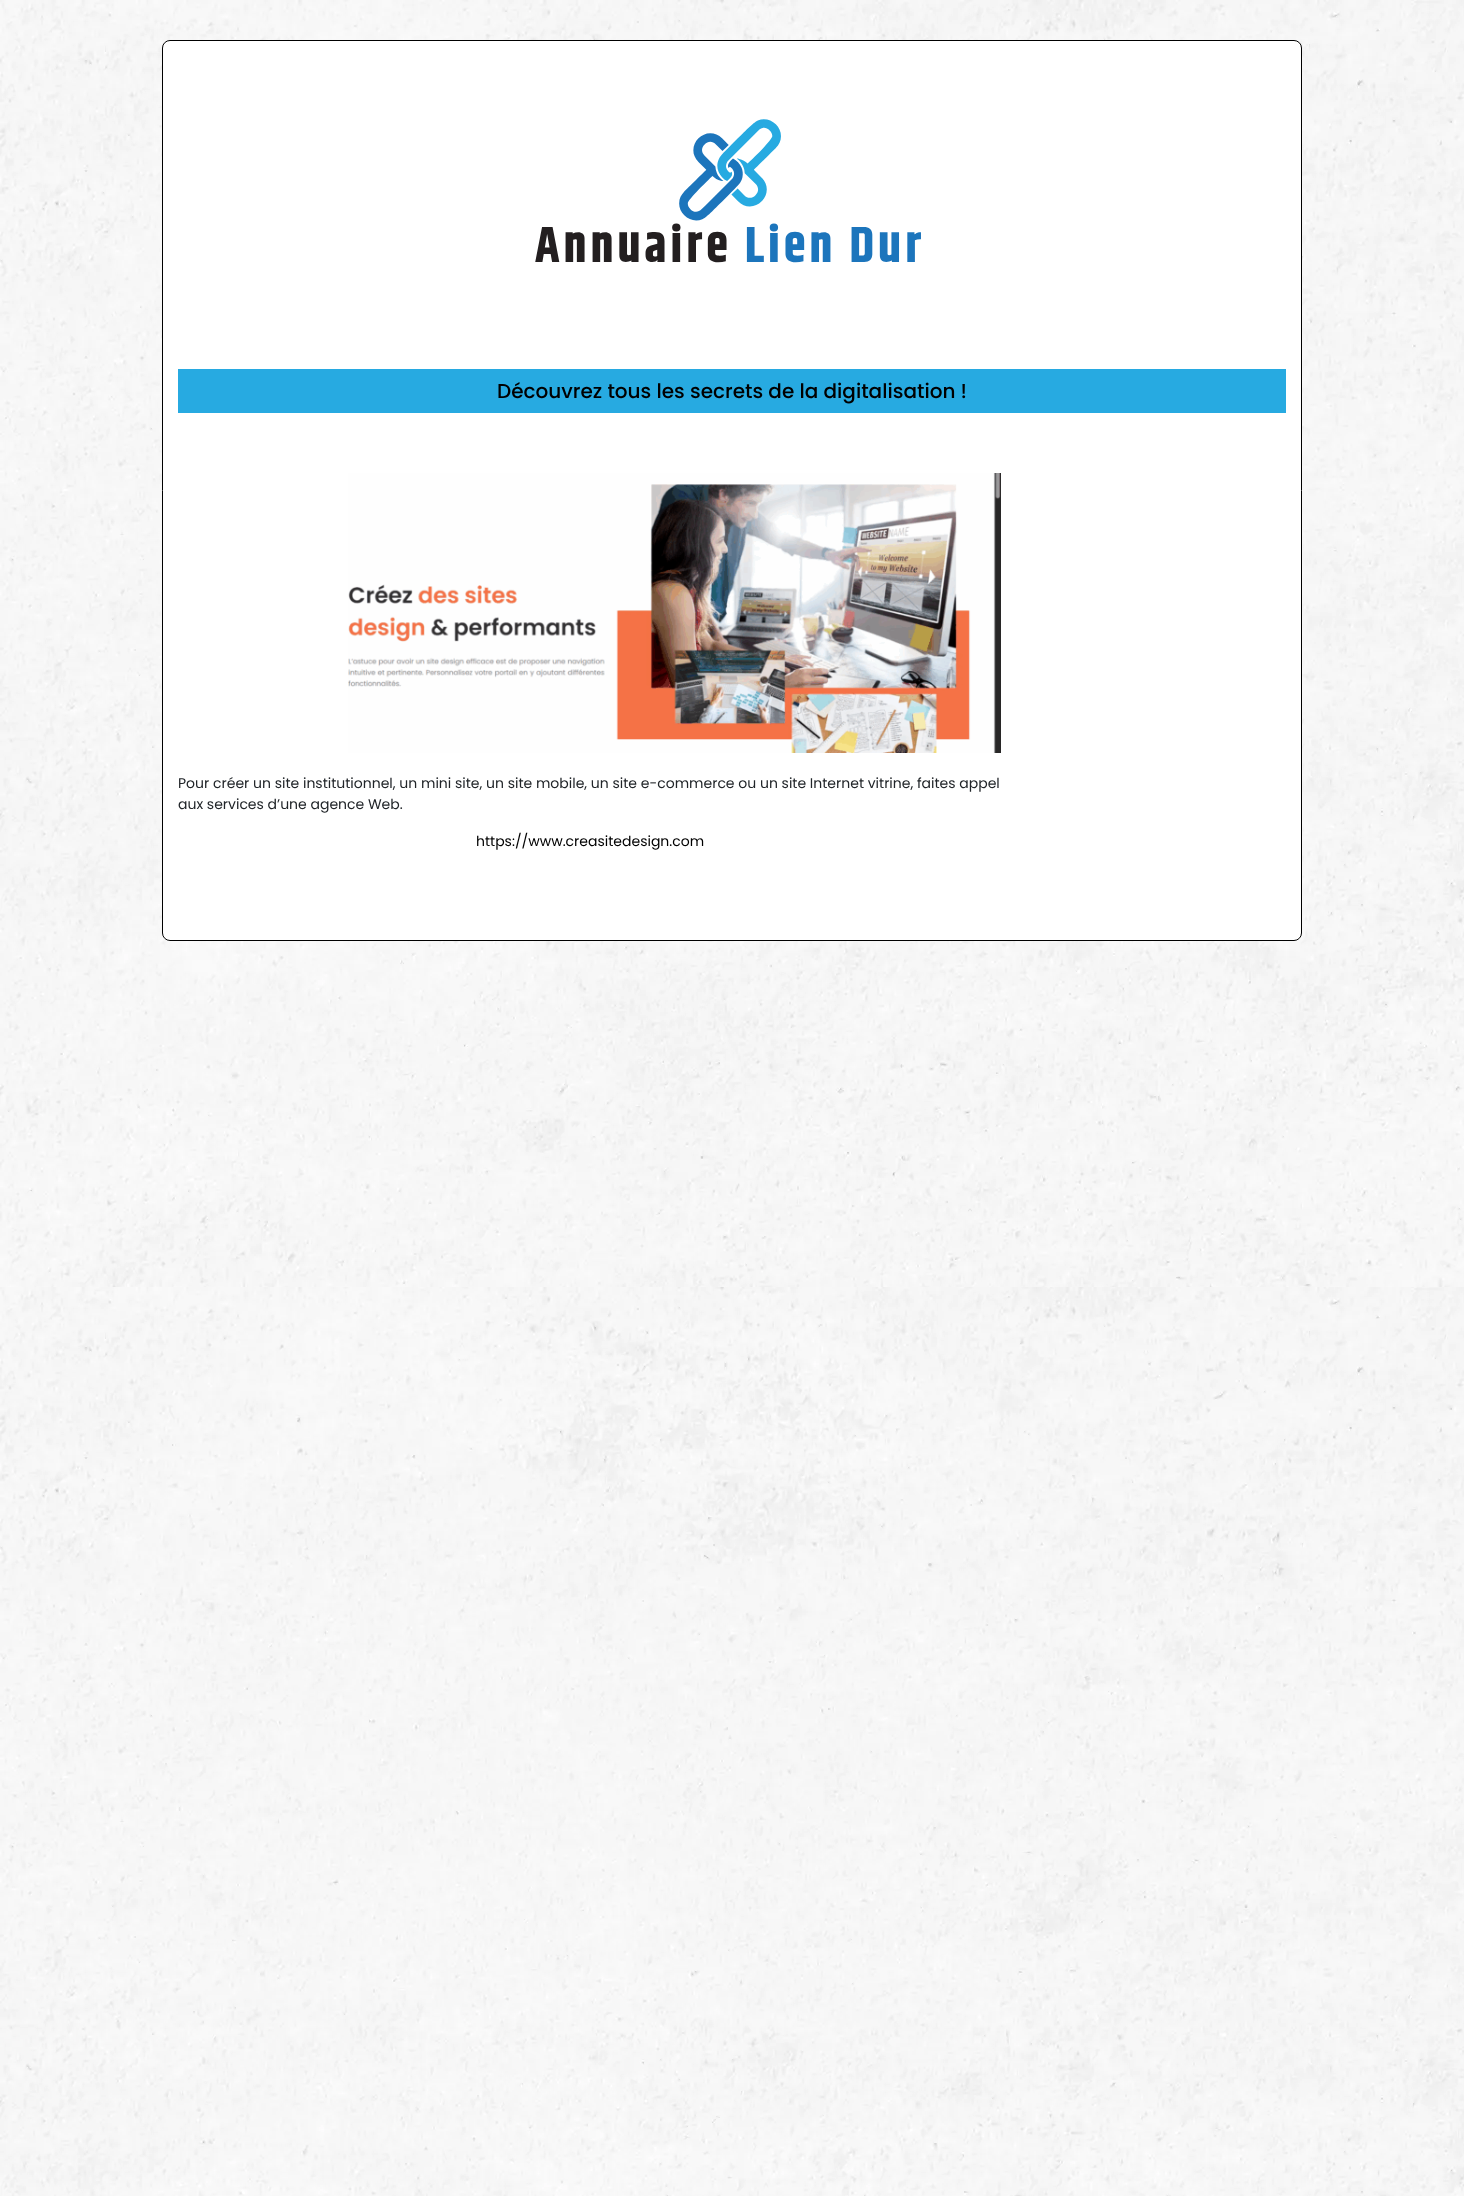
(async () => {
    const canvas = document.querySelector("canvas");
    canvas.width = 1464;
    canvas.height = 2196;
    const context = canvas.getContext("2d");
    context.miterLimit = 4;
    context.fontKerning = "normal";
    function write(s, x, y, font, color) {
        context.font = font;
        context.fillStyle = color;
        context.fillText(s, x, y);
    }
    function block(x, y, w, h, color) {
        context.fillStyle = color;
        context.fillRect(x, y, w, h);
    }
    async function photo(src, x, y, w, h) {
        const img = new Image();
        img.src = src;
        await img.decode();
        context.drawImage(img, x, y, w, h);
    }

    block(0, 0, 1464, 2196, "rgb(255, 255, 255)");
    await photo("media/1.png", 0, 0, 1464, 2196);
    context.beginPath();
    context.roundRect(162.5, 40.5, 1139, 900, 7.5);
    context.fill();
    context.strokeStyle = "rgb(0, 0, 0)";
    context.stroke();
    await photo("media/2.png", 535, 119, 386, 144);
    block(178, 369, 1108, 44, "rgb(39, 170, 225)");
    write("Découvrez tous les secrets de la digitalisation !", 497, 398, "500 20px Poppins", "rgb(0, 0, 0)");
    await photo("media/3.png", 348, 473, 653, 280);
    write("Pour créer un site institutionnel, un mini site, un site mobile, un site e-commerce ou un site Internet vitrine, faites appel", 178, 788, "14px Poppins", "rgb(33, 37, 41)");
    write("aux services d’une agence Web.", 178, 809, "14px Poppins", "rgb(33, 37, 41)");
    write("https://www.creasitedesign.com", 476, 846, "14px Poppins", "rgb(0, 0, 0)");
})();
